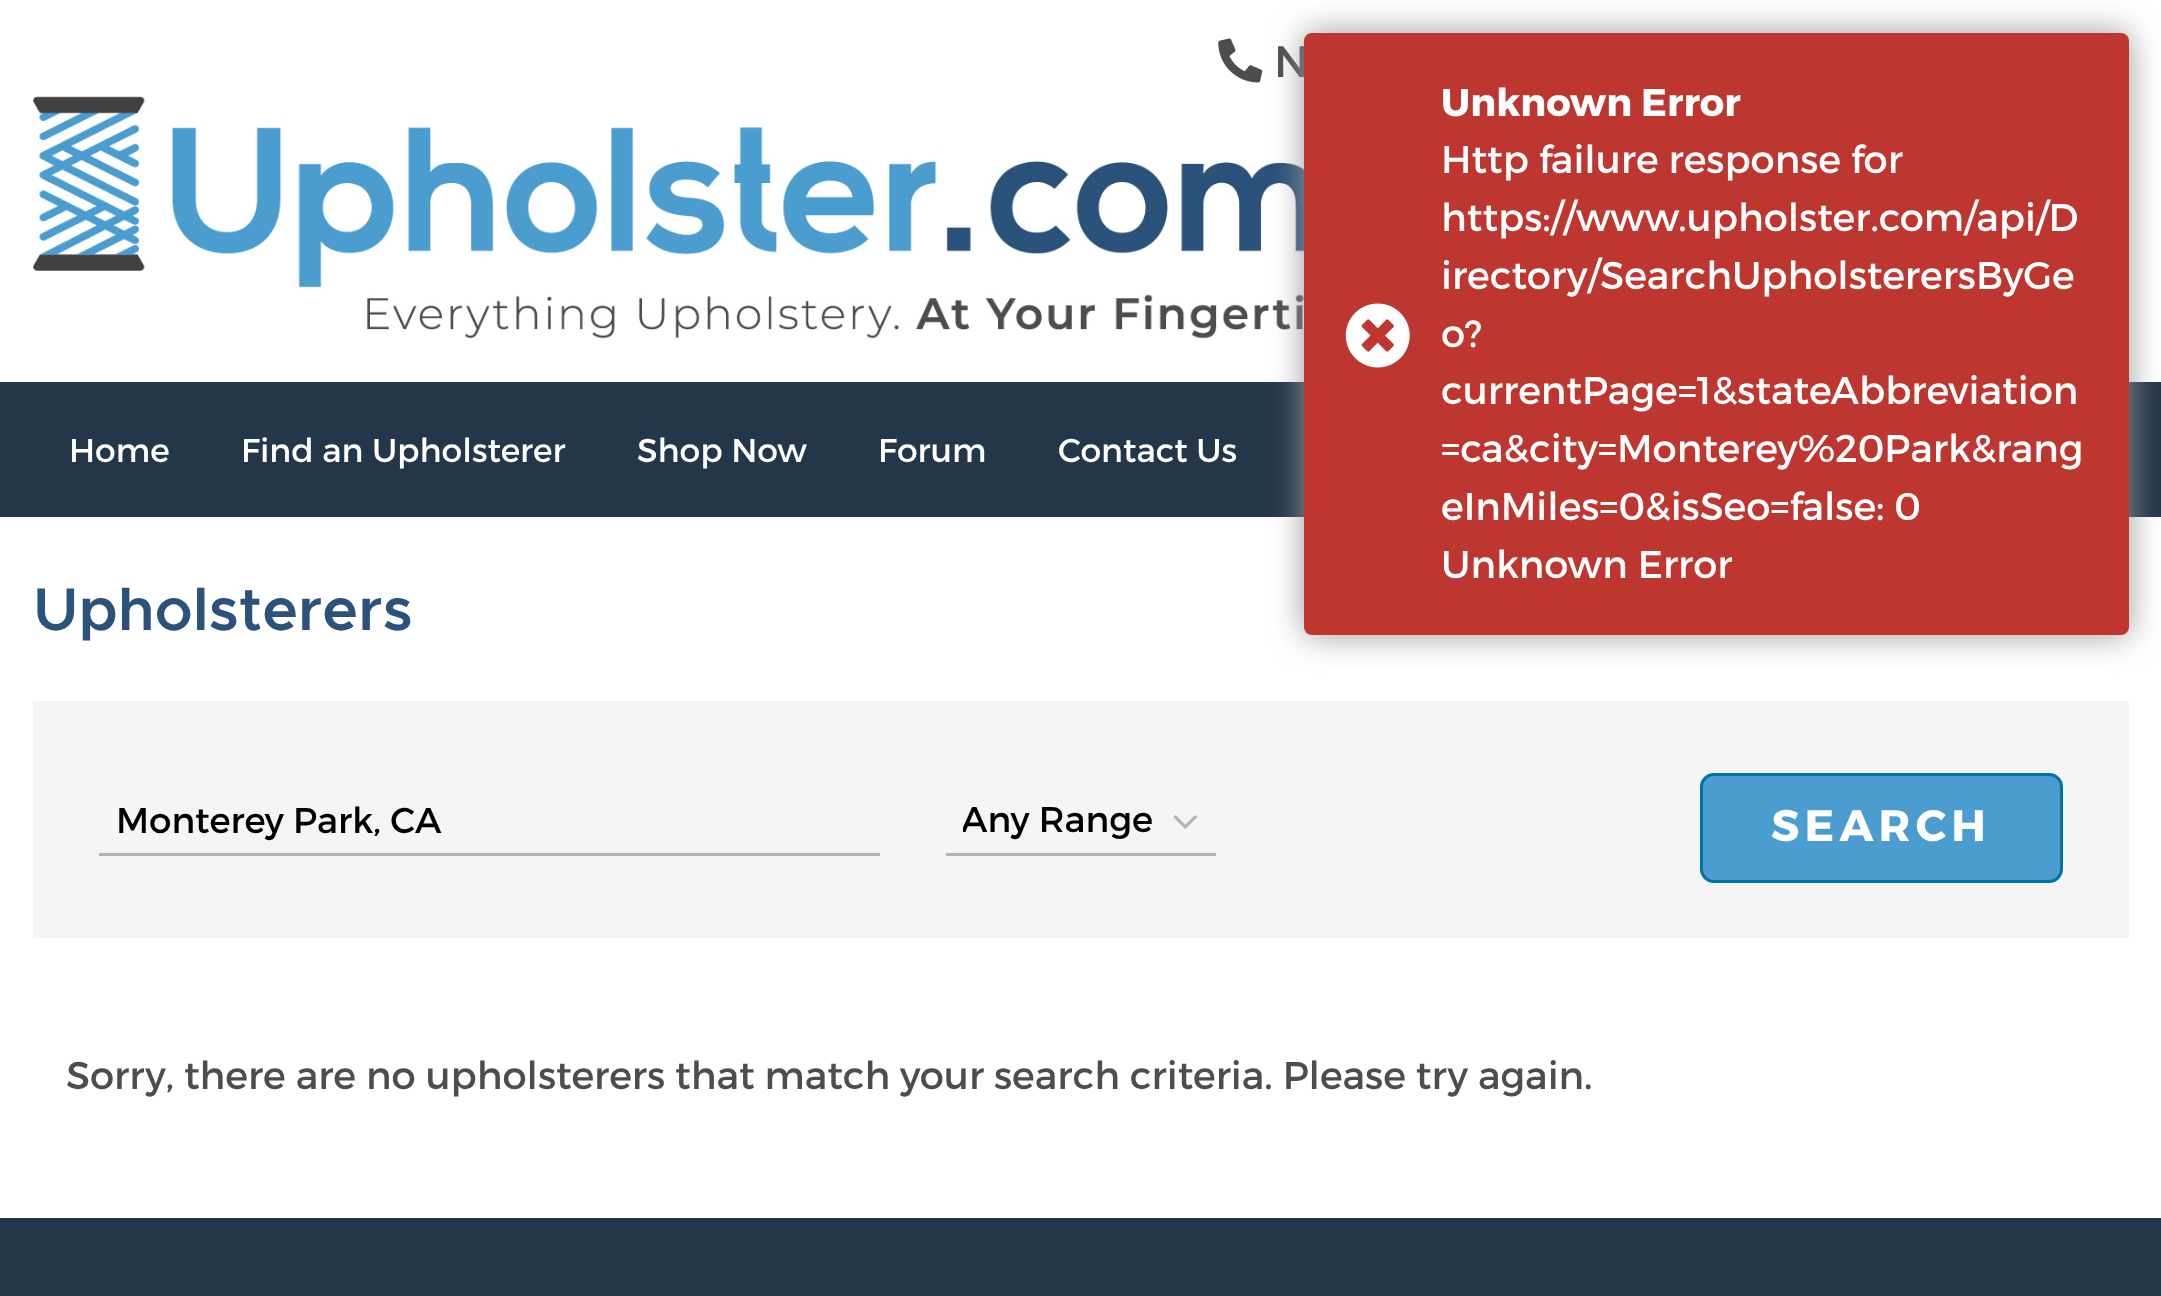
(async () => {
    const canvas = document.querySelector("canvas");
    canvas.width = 2161;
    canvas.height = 1296;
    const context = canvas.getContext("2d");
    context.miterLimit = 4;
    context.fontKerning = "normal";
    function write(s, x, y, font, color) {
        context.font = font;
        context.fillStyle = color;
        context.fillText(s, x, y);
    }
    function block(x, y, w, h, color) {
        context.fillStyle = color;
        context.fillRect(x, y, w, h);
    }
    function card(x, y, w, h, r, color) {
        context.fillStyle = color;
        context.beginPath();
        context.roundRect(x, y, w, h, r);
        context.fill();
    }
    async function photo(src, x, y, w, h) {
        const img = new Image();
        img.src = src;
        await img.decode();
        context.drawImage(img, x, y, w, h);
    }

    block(0, 0, 2161, 1296, "rgb(255, 255, 255)");
    await photo("media/1.png", 1218, 38, 45, 45);
    write("N", 1274, 77, "44px Montserrat", "rgb(77, 77, 77)");
    await photo("media/2.png", 33, 96, 1271, 243);
    block(0, 382, 2161, 135, "rgb(36, 54, 74)");
    write("Home", 69, 462, "33px Montserrat", "rgb(255, 255, 255)");
    write("Find an Upholsterer", 241, 462, "33px Montserrat", "rgb(255, 255, 255)");
    write("Shop Now", 637, 462, "33px Montserrat", "rgb(255, 255, 255)");
    write("Forum", 878, 462, "33px Montserrat", "rgb(255, 255, 255)");
    write("Contact Us", 1058, 462, "33px Montserrat", "rgb(255, 255, 255)");
    write("Upholsterers", 33, 630, "600 60.5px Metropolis", "rgb(42, 82, 122)");
    block(33, 701, 2096, 237, "rgb(245, 245, 245)");
    block(99, 853, 781, 3, "rgb(179, 179, 179)");
    write("Monterey Park, CA", 116, 833, "35.75px Montserrat", "rgb(0, 0, 0)");
    block(946, 853, 270, 3, "rgb(179, 179, 179)");
    context.save();
    context.beginPath();
    context.rect(963, 795, 192, 52);
    context.clip();
    write("Any Range", 961, 832, "35.75px Montserrat", "rgb(0, 0, 0)");
    context.restore();
    await photo("media/3.png", 1173, 815, 24, 14);
    context.fillStyle = "rgb(75, 157, 207)";
    context.beginPath();
    context.roundRect(1701.5, 774.5, 360, 107, 12.5);
    context.fill();
    context.strokeStyle = "rgb(0, 114, 163)";
    context.lineWidth = 3;
    context.stroke();
    context.letterSpacing = "5.25px";
    write("SEARCH", 1771, 841, "bold 44px Montserrat", "rgb(255, 255, 255)");
    context.letterSpacing = "0px";
    write("Sorry, there are no upholsterers that match your search criteria. Please try again.", 66, 1089, "38.5px Montserrat", "rgb(77, 77, 77)");
    block(0, 1218, 2161, 78, "rgb(36, 54, 74)");
    context.fillStyle = "rgb(153, 153, 153)";
    context.filter = "blur(16.5px)";
    context.beginPath();
    context.roundRect(1304, 33, 825, 602, 8);
    context.fill();
    context.filter = "none";
    card(1304, 33, 825, 602, 8, "rgb(189, 54, 47)");
    await photo("media/4.png", 1345, 303, 65, 65);
    write("Unknown Error", 1441, 116, "bold 38.5px Montserrat", "rgb(255, 255, 255)");
    write("Http failure response for", 1441, 173, "38.5px Montserrat", "rgb(255, 255, 255)");
    write("https://www.upholster.com/api/D", 1441, 231, "38.5px Montserrat", "rgb(255, 255, 255)");
    write("irectory/SearchUpholsterersByGe", 1441, 289, "38.5px Montserrat", "rgb(255, 255, 255)");
    write("o?", 1441, 347, "38.5px Montserrat", "rgb(255, 255, 255)");
    write("currentPage=1&stateAbbreviation", 1441, 404, "38.5px Montserrat", "rgb(255, 255, 255)");
    write("=ca&city=Monterey%20Park&rang", 1441, 462, "38.5px Montserrat", "rgb(255, 255, 255)");
    write("eInMiles=0&isSeo=false: 0", 1441, 520, "38.5px Montserrat", "rgb(255, 255, 255)");
    write("Unknown Error", 1441, 578, "38.5px Montserrat", "rgb(255, 255, 255)");
})();
